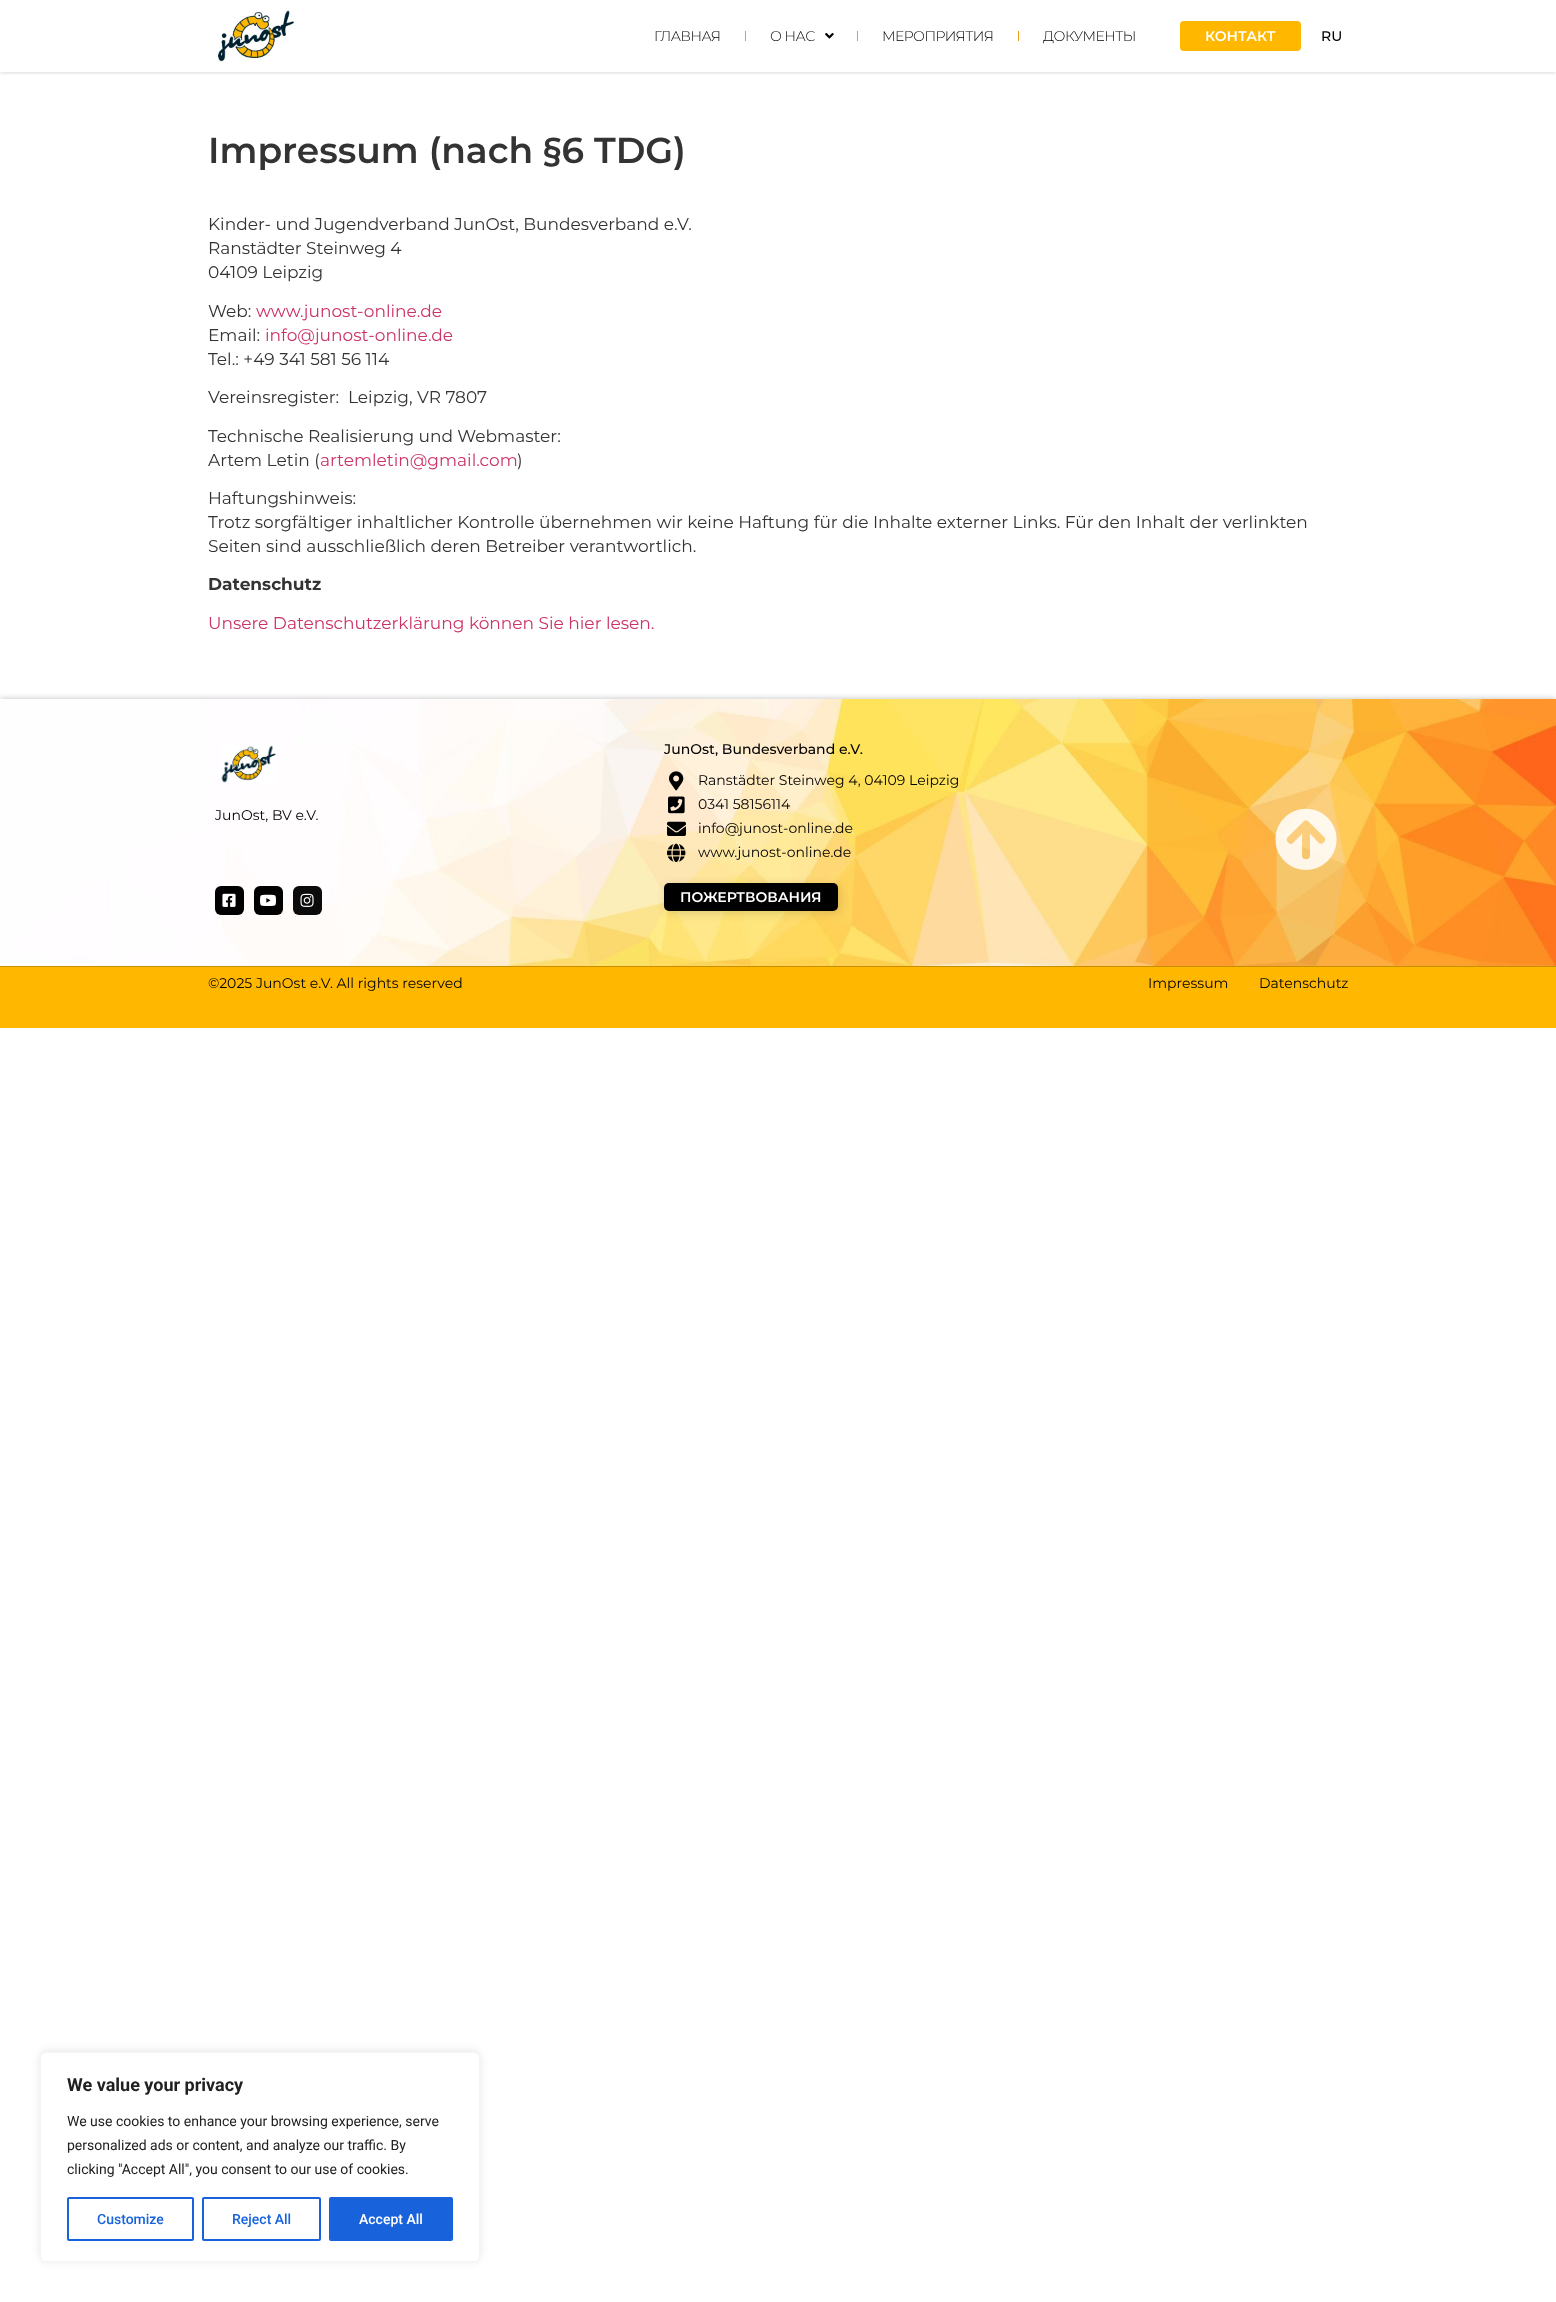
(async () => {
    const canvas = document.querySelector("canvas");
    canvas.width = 1556;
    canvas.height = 2302;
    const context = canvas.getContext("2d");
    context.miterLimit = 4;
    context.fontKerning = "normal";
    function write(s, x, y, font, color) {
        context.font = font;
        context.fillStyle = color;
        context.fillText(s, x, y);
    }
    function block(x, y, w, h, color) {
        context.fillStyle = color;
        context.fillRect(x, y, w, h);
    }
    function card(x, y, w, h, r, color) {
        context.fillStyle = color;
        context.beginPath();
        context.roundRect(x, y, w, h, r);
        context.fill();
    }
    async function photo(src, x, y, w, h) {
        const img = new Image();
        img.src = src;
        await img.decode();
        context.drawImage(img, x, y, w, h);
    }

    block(0, 0, 1556, 2302, "rgb(255, 255, 255)");
    context.save();
    context.beginPath();
    context.rect(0, 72, 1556, 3);
    context.clip();
    context.fillStyle = "rgba(0, 0, 0, 0.2)";
    context.filter = "blur(2.5px)";
    context.beginPath();
    context.rect(0, 0, 1556, 72);
    context.fill();
    context.filter = "none";
    context.restore();
    await photo("media/1.png", 218, 10, 76, 52);
    context.letterSpacing = "-0.5px";
    write("ГЛАВНАЯ", 654, 41, "300 14px Montserrat", "rgb(0, 0, 0)");
    block(745, 31, 1, 10, "rgb(243, 155, 28)");
    write("О НАС", 770, 41, "300 14px Montserrat", "rgb(0, 0, 0)");
    await photo("media/2.png", 825, 33, 9, 6);
    block(857, 31, 1, 10, "rgb(243, 155, 28)");
    write("МЕРОПРИЯТИЯ", 882, 41, "300 14px Montserrat", "rgb(0, 0, 0)");
    block(1018, 31, 1, 10, "rgb(243, 155, 28)");
    write("ДОКУМЕНТЫ", 1043, 41, "300 14px Montserrat", "rgb(0, 0, 0)");
    card(1180, 21, 121, 30, 4, "rgb(255, 183, 0)");
    context.letterSpacing = "0px";
    write("КОНТАКТ", 1205, 41, "600 14px Montserrat", "rgb(255, 255, 255)");
    write("RU", 1321, 41, "500 14px Montserrat", "rgb(0, 0, 0)");
    write("Impressum (nach §6 TDG)", 208, 163, "600 36px Montserrat", "rgb(51, 51, 51)");
    write("Kinder- und Jugendverband JunOst, Bundesverband e.V.", 208, 230, "17px Montserrat", "rgb(51, 51, 51)");
    write("Ranstädter Steinweg 4", 208, 254, "17px Montserrat", "rgb(51, 51, 51)");
    write("04109 Leipzig", 208, 278, "17px Montserrat", "rgb(51, 51, 51)");
    write("Web:", 208, 317, "17px Montserrat", "rgb(51, 51, 51)");
    write("www.junost-online.de", 256, 317, "17px Montserrat", "rgb(204, 51, 102)");
    write("Email:", 208, 341, "17px Montserrat", "rgb(51, 51, 51)");
    write("info@junost-online.de", 265, 341, "17px Montserrat", "rgb(204, 51, 102)");
    write("Tel.: +49 341 581 56 114", 208, 365, "17px Montserrat", "rgb(51, 51, 51)");
    write("Vereinsregister:  Leipzig, VR 7807", 208, 403, "17px Montserrat", "rgb(51, 51, 51)");
    write("Technische Realisierung und Webmaster:", 208, 442, "17px Montserrat", "rgb(51, 51, 51)");
    write("Artem Letin (", 208, 466, "17px Montserrat", "rgb(51, 51, 51)");
    write("artemletin@gmail.com", 320, 466, "17px Montserrat", "rgb(204, 51, 102)");
    write(")", 517, 466, "17px Montserrat", "rgb(51, 51, 51)");
    write("Haftungshinweis:", 208, 504, "17px Montserrat", "rgb(51, 51, 51)");
    write("Trotz sorgfältiger inhaltlicher Kontrolle übernehmen wir keine Haftung für die Inhalte externer Links. Für den Inhalt der verlinkten", 208, 528, "17px Montserrat", "rgb(51, 51, 51)");
    write("Seiten sind ausschließlich deren Betreiber verantwortlich.", 208, 552, "17px Montserrat", "rgb(51, 51, 51)");
    write("Datenschutz", 208, 590, "bold 17px Montserrat", "rgb(51, 51, 51)");
    write("Unsere Datenschutzerklärung können Sie hier lesen.", 208, 629, "17px Montserrat", "rgb(204, 51, 102)");
    context.fillStyle = "rgba(0, 0, 0, 0.25)";
    context.filter = "blur(3px)";
    context.beginPath();
    context.rect(0, 699, 1556, 267);
    context.fill();
    context.filter = "none";
    await photo("media/3.png", 0, 699, 1556, 267);
    await photo("media/4.png", 221, 745, 56, 38);
    write("JunOst, BV e.V.", 215, 820, "14px Montserrat", "rgb(0, 0, 0)");
    card(215, 886, 29, 29, 6, "rgb(0, 0, 0)");
    await photo("media/5.png", 222, 893, 14, 14);
    card(254, 886, 29, 29, 6, "rgb(0, 0, 0)");
    await photo("media/6.png", 260, 894, 16, 12);
    card(293, 886, 29, 29, 6, "rgb(11, 11, 11)");
    await photo("media/7.png", 300, 893, 14, 14);
    write("JunOst, Bundesverband e.V.", 664, 754, "500 14px Montserrat", "rgb(0, 0, 0)");
    await photo("media/8.png", 669, 771, 15, 20);
    write("Ranstädter Steinweg 4, 04109 Leipzig", 698, 785, "14px Montserrat", "rgb(0, 0, 0)");
    await photo("media/9.png", 668, 796, 17, 18);
    write("0341 58156114", 698, 809, "14px Montserrat", "rgb(0, 0, 0)");
    await photo("media/10.png", 667, 821, 19, 15);
    write("info@junost-online.de", 698, 833, "14px Montserrat", "rgb(0, 0, 0)");
    await photo("media/11.png", 667, 843, 19, 20);
    write("www.junost-online.de", 698, 857, "14px Montserrat", "rgb(0, 0, 0)");
    context.fillStyle = "rgba(0, 0, 0, 0.13)";
    context.filter = "blur(5px)";
    context.beginPath();
    context.roundRect(666, 885, 174, 28, 5);
    context.fill();
    context.filter = "none";
    card(664, 883, 174, 28, 5, "rgb(0, 0, 0)");
    write("ПОЖЕРТВОВАНИЯ", 680, 902, "600 14px Montserrat", "rgb(255, 255, 255)");
    await photo("media/12.png", 1275, 808, 62, 62);
    block(0, 967, 1556, 61, "rgb(255, 183, 0)");
    block(0, 966, 1556, 1, "rgb(199, 143, 0)");
    write("©2025 JunOst e.V. All rights reserved", 208, 988, "14px Montserrat", "rgb(0, 0, 0)");
    write("Impressum", 1148, 988, "14px Montserrat", "rgb(0, 0, 0)");
    write("Datenschutz", 1259, 988, "14px Montserrat", "rgb(0, 0, 0)");
    context.fillStyle = "rgba(172, 171, 171, 0.3)";
    context.filter = "blur(5px)";
    context.beginPath();
    context.roundRect(40, 2051, 440, 210, 6);
    context.fill();
    context.filter = "none";
    context.fillStyle = "rgb(255, 255, 255)";
    context.beginPath();
    context.roundRect(40.5, 2052.5, 439, 209, 5.5);
    context.fill();
    context.strokeStyle = "rgb(244, 244, 244)";
    context.stroke();
    write("We value your privacy", 67, 2091, "bold 18px Roboto", "rgb(33, 33, 33)");
    write("We use cookies to enhance your browsing experience, serve", 67, 2126, "14px Roboto", "rgb(33, 33, 33)");
    write("personalized ads or content, and analyze our traffic. By", 67, 2150, "14px Roboto", "rgb(33, 33, 33)");
    write("clicking \"Accept All\", you consent to our use of cookies.", 67, 2174, "14px Roboto", "rgb(33, 33, 33)");
    context.beginPath();
    context.roundRect(68, 2198, 125, 42, 1);
    context.strokeStyle = "rgb(24, 99, 220)";
    context.lineWidth = 2;
    context.stroke();
    write("Customize", 97, 2224, "500 14px Roboto", "rgb(24, 99, 220)");
    context.beginPath();
    context.roundRect(203, 2198, 117, 42, 1);
    context.stroke();
    write("Reject All", 232, 2224, "500 14px Roboto", "rgb(24, 99, 220)");
    context.beginPath();
    context.roundRect(330, 2198, 122, 42, 1);
    context.fill();
    context.stroke();
    write("Accept All", 359, 2224, "500 14px Roboto", "rgb(255, 255, 255)");
})();
